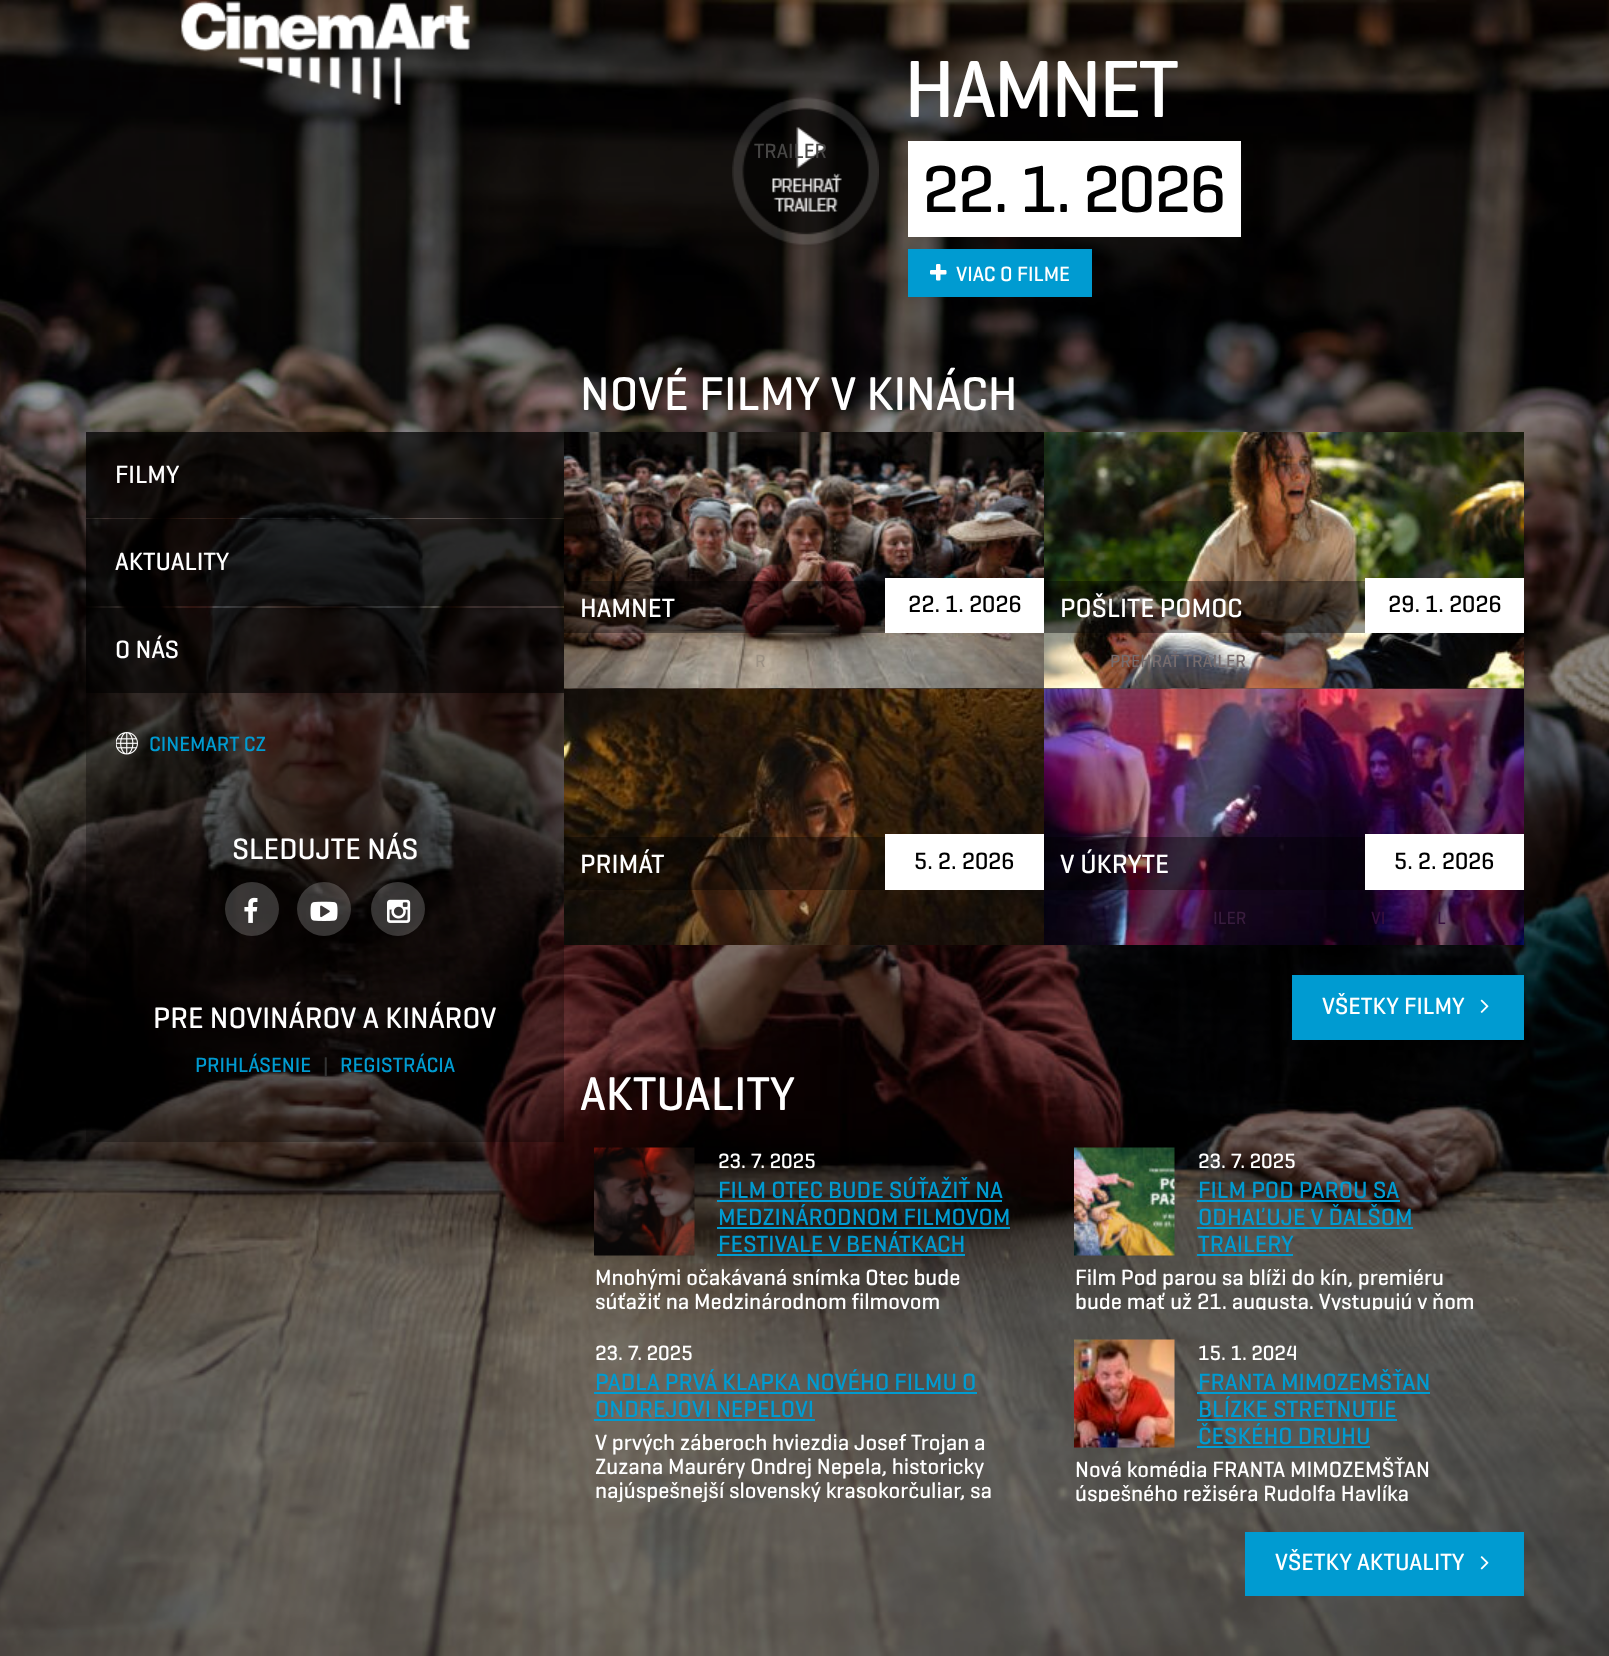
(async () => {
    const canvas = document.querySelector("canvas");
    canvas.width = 1609;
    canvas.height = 1656;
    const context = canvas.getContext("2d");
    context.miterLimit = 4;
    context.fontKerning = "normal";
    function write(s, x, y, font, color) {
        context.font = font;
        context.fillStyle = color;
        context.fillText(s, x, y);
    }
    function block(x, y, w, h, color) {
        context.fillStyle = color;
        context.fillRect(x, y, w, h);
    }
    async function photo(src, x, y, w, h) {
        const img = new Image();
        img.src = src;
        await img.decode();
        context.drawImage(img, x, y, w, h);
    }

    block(0, 0, 1609, 1656, "rgb(255, 255, 255)");
    await photo("media/1.png", 0, 0, 1609, 1656);
    await photo("media/2.png", 181, 1, 289, 104);
    context.letterSpacing = "-3px";
    write("HAMNET", 904, 117, "500 82.5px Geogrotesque", "rgb(255, 255, 255)");
    await photo("media/3.png", 732, 97, 147, 148);
    context.letterSpacing = "0px";
    write("TRAILER", 754, 158, "500 21px Geogrotesque", "rgb(71, 70, 69)");
    block(908, 141, 333, 96, "rgb(255, 255, 255)");
    context.letterSpacing = "-1.5px";
    write("22. 1. 2026", 922, 212, "500 67.5px Geogrotesque", "rgb(0, 0, 0)");
    block(908, 249, 184, 48, "rgb(0, 155, 209)");
    await photo("media/4.png", 930, 264, 17, 17);
    context.letterSpacing = "0px";
    write("VIAC O FILME", 956, 281, "500 21px Geogrotesque", "rgb(255, 255, 255)");
    write("NOVÉ FILMY V KINÁCH", 580, 410, "500 48px Geogrotesque", "rgb(255, 255, 255)");
    block(86, 432, 478, 710, "rgba(0, 0, 0, 0.3)");
    block(86, 432, 478, 86, "rgba(0, 0, 0, 0.6)");
    write("FILMY", 115, 483, "500 25.5px Geogrotesque", "rgb(255, 255, 255)");
    block(86, 519, 478, 87, "rgba(0, 0, 0, 0.6)");
    write("AKTUALITY", 115, 570, "500 25.5px Geogrotesque", "rgb(255, 255, 255)");
    block(86, 608, 478, 85, "rgba(0, 0, 0, 0.6)");
    write("O NÁS", 115, 658, "500 25.5px Geogrotesque", "rgb(255, 255, 255)");
    await photo("media/5.png", 116, 732, 22, 23);
    write("CINEMART CZ", 149, 751, "500 21px Geogrotesque", "rgb(0, 155, 209)");
    write("SLEDUJTE NÁS", 232, 859, "500 30px Geogrotesque", "rgb(255, 255, 255)");
    context.fillStyle = "rgba(255, 255, 255, 0.2)";
    context.beginPath();
    context.arc(252, 909, 27, 0, Math.PI * 2);
    context.fill();
    await photo("media/6.png", 244, 897, 14, 26);
    context.beginPath();
    context.arc(324, 909, 27, 0, Math.PI * 2);
    context.fill();
    await photo("media/7.png", 310, 901, 28, 20);
    context.beginPath();
    context.arc(398, 909, 27, 0, Math.PI * 2);
    context.fill();
    await photo("media/8.png", 387, 899, 24, 24);
    write("PRE NOVINÁROV A KINÁROV", 153, 1028, "500 30px Geogrotesque", "rgb(255, 255, 255)");
    write("PRIHLÁSENIE", 195, 1072, "500 21px Geogrotesque", "rgb(0, 155, 209)");
    write("|", 323, 1072, "500 21px Geogrotesque", "rgb(51, 51, 51)");
    write("REGISTRÁCIA", 340, 1072, "500 21px Geogrotesque", "rgb(0, 155, 209)");
    await photo("media/9.png", 564, 432, 480, 257);
    block(564, 581, 321, 52, "rgba(0, 0, 0, 0.4)");
    write("HAMNET", 580, 617, "500 27px Geogrotesque", "rgb(255, 255, 255)");
    block(885, 578, 159, 55, "rgb(255, 255, 255)");
    write("22. 1. 2026", 908, 612, "500 24px Geogrotesque", "rgb(0, 0, 0)");
    write("R", 755, 667, "500 18px Geogrotesque", "rgb(155, 144, 131)");
    await photo("media/10.png", 1044, 432, 480, 257);
    block(1044, 581, 321, 52, "rgba(0, 0, 0, 0.4)");
    write("POŠLITE POMOC", 1060, 617, "500 27px Geogrotesque", "rgb(255, 255, 255)");
    block(1365, 578, 159, 55, "rgb(255, 255, 255)");
    write("29. 1. 2026", 1388, 612, "500 24px Geogrotesque", "rgb(0, 0, 0)");
    write("PREHRAŤ TRAILER", 1110, 667, "500 18px Geogrotesque", "rgb(119, 108, 109)");
    await photo("media/11.png", 564, 688, 480, 257);
    block(564, 837, 321, 53, "rgba(0, 0, 0, 0.4)");
    write("PRIMÁT", 580, 873, "500 27px Geogrotesque", "rgb(255, 255, 255)");
    block(885, 834, 159, 56, "rgb(255, 255, 255)");
    write("5. 2. 2026", 914, 869, "500 24px Geogrotesque", "rgb(0, 0, 0)");
    await photo("media/12.png", 1044, 688, 480, 257);
    block(1044, 837, 321, 53, "rgba(0, 0, 0, 0.4)");
    write("V ÚKRYTE", 1060, 873, "500 27px Geogrotesque", "rgb(255, 255, 255)");
    block(1365, 834, 159, 56, "rgb(255, 255, 255)");
    write("5. 2. 2026", 1394, 869, "500 24px Geogrotesque", "rgb(0, 0, 0)");
    write("VI", 1371, 924, "500 18px Geogrotesque", "rgb(55, 15, 61)");
    write("L", 1437, 924, "500 18px Geogrotesque", "rgb(55, 15, 61)");
    write("ILER", 1213, 924, "500 18px Geogrotesque", "rgb(56, 28, 61)");
    block(1292, 975, 232, 65, "rgb(0, 155, 209)");
    write("VŠETKY FILMY", 1322, 1014, "500 24px Geogrotesque", "rgb(255, 255, 255)");
    await photo("media/13.png", 1480, 999, 9, 14);
    write("AKTUALITY", 580, 1110, "500 48px Geogrotesque", "rgb(255, 255, 255)");
    write("23. 7. 2025", 718, 1168, "500 21px Geogrotesque", "rgb(255, 255, 255)");
    await photo("media/14.png", 594, 1147, 101, 109);
    write("FILM OTEC BUDE SÚŤAŽIŤ NA", 718, 1198, "500 24px Geogrotesque", "rgb(0, 155, 209)");
    block(717, 1200, 285, 2, "rgb(0, 155, 209)");
    write("MEDZINÁRODNOM FILMOVOM", 718, 1225, "500 24px Geogrotesque", "rgb(0, 155, 209)");
    block(717, 1227, 293, 2, "rgb(0, 155, 209)");
    write("FESTIVALE V BENÁTKACH", 718, 1252, "500 24px Geogrotesque", "rgb(0, 155, 209)");
    block(717, 1254, 248, 2, "rgb(0, 155, 209)");
    write("Mnohými očakávaná snímka Otec bude", 595, 1285, "500 22.5px Geogrotesque", "rgb(255, 255, 255)");
    write("súťažiť na Medzinárodnom filmovom", 595, 1309, "500 22.5px Geogrotesque", "rgb(255, 255, 255)");
    write("23. 7. 2025", 1198, 1168, "500 21px Geogrotesque", "rgb(255, 255, 255)");
    await photo("media/15.png", 1074, 1147, 101, 109);
    write("FILM POD PAROU SA", 1198, 1198, "500 24px Geogrotesque", "rgb(0, 155, 209)");
    block(1197, 1200, 203, 2, "rgb(0, 155, 209)");
    write("ODHAĽUJE V ĎALŠOM", 1198, 1225, "500 24px Geogrotesque", "rgb(0, 155, 209)");
    block(1197, 1227, 216, 2, "rgb(0, 155, 209)");
    write("TRAILERY", 1198, 1252, "500 24px Geogrotesque", "rgb(0, 155, 209)");
    block(1197, 1254, 96, 2, "rgb(0, 155, 209)");
    write("Film Pod parou sa blíži do kín, premiéru", 1075, 1285, "500 22.5px Geogrotesque", "rgb(255, 255, 255)");
    context.save();
    context.beginPath();
    context.rect(1044, 1118, 480, 192);
    context.clip();
    write("bude mať už 21. augusta. Vystupujú v ňom", 1075, 1309, "500 22.5px Geogrotesque", "rgb(255, 255, 255)");
    context.restore();
    write("23. 7. 2025", 595, 1360, "500 21px Geogrotesque", "rgb(255, 255, 255)");
    write("PADLA PRVÁ KLAPKA NOVÉHO FILMU O", 595, 1390, "500 24px Geogrotesque", "rgb(0, 155, 209)");
    block(594, 1392, 383, 2, "rgb(0, 155, 209)");
    write("ONDREJOVI NEPELOVI", 595, 1417, "500 24px Geogrotesque", "rgb(0, 155, 209)");
    block(594, 1419, 221, 2, "rgb(0, 155, 209)");
    write("V prvých záberoch hviezdia Josef Trojan a", 595, 1450, "500 22.5px Geogrotesque", "rgb(255, 255, 255)");
    write("Zuzana Mauréry Ondrej Nepela, historicky", 595, 1474, "500 22.5px Geogrotesque", "rgb(255, 255, 255)");
    context.save();
    context.beginPath();
    context.rect(564, 1310, 480, 192);
    context.clip();
    write("najúspešnejší slovenský krasokorčuliar, sa", 595, 1498, "500 22.5px Geogrotesque", "rgb(255, 255, 255)");
    context.restore();
    write("15. 1. 2024", 1198, 1360, "500 21px Geogrotesque", "rgb(255, 255, 255)");
    await photo("media/16.png", 1074, 1339, 101, 109);
    write("FRANTA MIMOZEMŠŤAN", 1198, 1390, "500 24px Geogrotesque", "rgb(0, 155, 209)");
    block(1197, 1392, 233, 2, "rgb(0, 155, 209)");
    write("BLÍZKE STRETNUTIE", 1198, 1417, "500 24px Geogrotesque", "rgb(0, 155, 209)");
    block(1197, 1419, 200, 2, "rgb(0, 155, 209)");
    write("ČESKÉHO DRUHU", 1198, 1444, "500 24px Geogrotesque", "rgb(0, 155, 209)");
    block(1197, 1446, 173, 2, "rgb(0, 155, 209)");
    write("Nová komédia FRANTA MIMOZEMŠŤAN", 1075, 1477, "500 22.5px Geogrotesque", "rgb(255, 255, 255)");
    context.save();
    context.beginPath();
    context.rect(1044, 1310, 480, 192);
    context.clip();
    write("úspešného režiséra Rudolfa Havlíka", 1075, 1501, "500 22.5px Geogrotesque", "rgb(255, 255, 255)");
    context.restore();
    block(1245, 1532, 279, 64, "rgb(0, 155, 209)");
    write("VŠETKY AKTUALITY", 1275, 1570, "500 24px Geogrotesque", "rgb(255, 255, 255)");
    await photo("media/17.png", 1480, 1556, 9, 14);
})();
